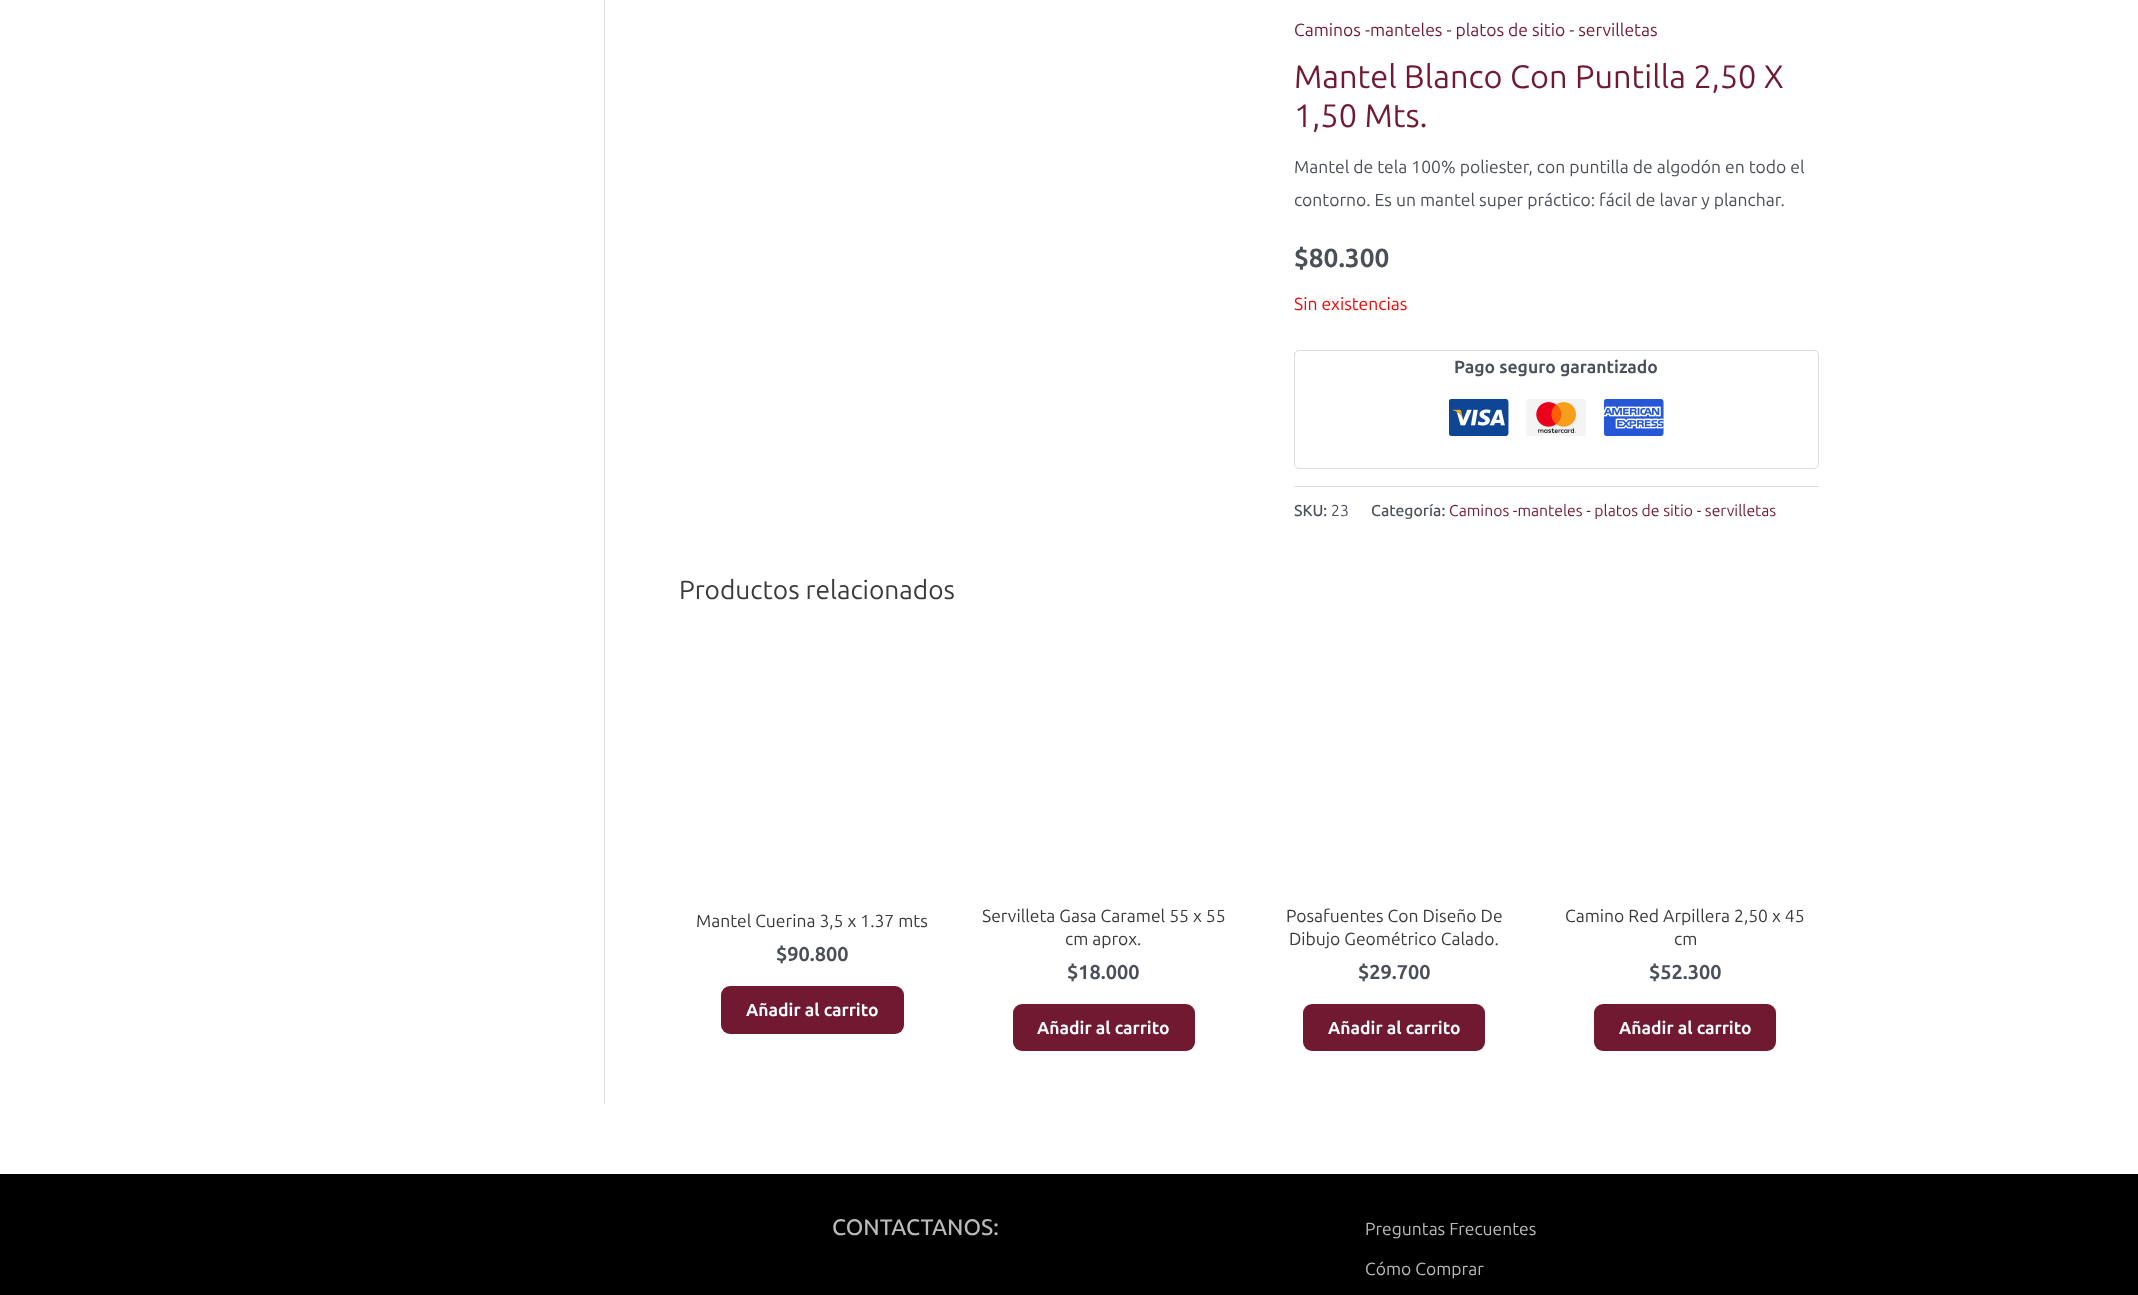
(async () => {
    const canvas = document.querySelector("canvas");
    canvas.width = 2138;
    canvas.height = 1295;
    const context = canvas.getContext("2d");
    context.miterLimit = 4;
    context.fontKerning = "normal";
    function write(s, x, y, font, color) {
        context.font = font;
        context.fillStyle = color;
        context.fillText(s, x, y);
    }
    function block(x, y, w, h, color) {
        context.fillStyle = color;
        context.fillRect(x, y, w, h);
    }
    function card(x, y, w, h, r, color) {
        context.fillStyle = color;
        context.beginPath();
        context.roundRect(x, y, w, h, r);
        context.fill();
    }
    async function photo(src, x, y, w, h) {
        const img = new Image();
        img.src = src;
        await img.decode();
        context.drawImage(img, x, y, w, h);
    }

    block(0, 0, 2138, 1295, "rgb(255, 255, 255)");
    block(604, 0, 1, 1104, "rgb(221, 221, 221)");
    write("Caminos -manteles - platos de sitio - servilletas", 1294, 36, "17.5px Ubuntu", "rgb(112, 25, 48)");
    write("Mantel Blanco Con Puntilla 2,50 X", 1294, 88, "32.5px Ubuntu", "rgb(112, 25, 48)");
    write("1,50 Mts.", 1294, 127, "32.5px Ubuntu", "rgb(112, 25, 48)");
    write("Mantel de tela 100% poliester, con puntilla de algodón en todo el", 1294, 173, "17.5px Ubuntu", "rgb(75, 79, 88)");
    write("contorno. Es un mantel super práctico: fácil de lavar y planchar.", 1294, 206, "17.5px Ubuntu", "rgb(75, 79, 88)");
    write("$80.300", 1294, 267, "bold 26.25px Ubuntu", "rgb(75, 79, 88)");
    write("Sin existencias", 1294, 310, "17.5px Ubuntu", "rgb(255, 0, 0)");
    context.beginPath();
    context.roundRect(1294.5, 350.5, 524, 118, 4.5);
    context.strokeStyle = "rgb(221, 221, 221)";
    context.stroke();
    write("Pago seguro garantizado", 1454, 373, "bold 17.5px Ubuntu", "rgb(75, 79, 88)");
    await photo("media/1.png", 1449, 399, 60, 37);
    await photo("media/2.png", 1526, 399, 60, 37);
    await photo("media/3.png", 1604, 399, 60, 37);
    block(1294, 486, 525, 1, "rgb(221, 221, 221)");
    write("SKU:", 1294, 516, "500 15.75px Ubuntu", "rgb(75, 79, 88)");
    write("23", 1331, 516, "15.75px Ubuntu", "rgb(75, 79, 88)");
    write("Categoría:", 1371, 516, "500 15.75px Ubuntu", "rgb(75, 79, 88)");
    write("Caminos -manteles - platos de sitio - servilletas", 1449, 516, "15.75px Ubuntu", "rgb(112, 25, 48)");
    write("Productos relacionados", 679, 599, "26.25px Ubuntu", "rgb(58, 58, 58)");
    write("Mantel Cuerina 3,5 x 1.37 mts", 696, 927, "17.5px Ubuntu", "rgb(58, 58, 58)");
    write("$90.800", 776, 961, "bold 20px Ubuntu", "rgb(75, 79, 88)");
    card(721, 986, 183, 48, 9, "rgb(112, 25, 48)");
    write("Añadir al carrito", 746, 1016, "bold 17.5px Ubuntu", "rgb(255, 255, 255)");
    write("Servilleta Gasa Caramel 55 x 55", 982, 922, "17.5px Ubuntu", "rgb(58, 58, 58)");
    write("cm aprox.", 1065, 945, "17.5px Ubuntu", "rgb(58, 58, 58)");
    write("$18.000", 1067, 979, "bold 20px Ubuntu", "rgb(75, 79, 88)");
    card(1013, 1004, 182, 47, 9, "rgb(112, 25, 48)");
    write("Añadir al carrito", 1037, 1034, "bold 17.5px Ubuntu", "rgb(255, 255, 255)");
    write("Posafuentes Con Diseño De", 1286, 922, "17.5px Ubuntu", "rgb(58, 58, 58)");
    write("Dibujo Geométrico Calado.", 1289, 945, "17.5px Ubuntu", "rgb(58, 58, 58)");
    write("$29.700", 1358, 979, "bold 20px Ubuntu", "rgb(75, 79, 88)");
    card(1303, 1004, 182, 47, 9, "rgb(112, 25, 48)");
    write("Añadir al carrito", 1328, 1034, "bold 17.5px Ubuntu", "rgb(255, 255, 255)");
    write("Camino Red Arpillera 2,50 x 45", 1565, 922, "17.5px Ubuntu", "rgb(58, 58, 58)");
    write("cm", 1674, 945, "17.5px Ubuntu", "rgb(58, 58, 58)");
    write("$52.300", 1649, 979, "bold 20px Ubuntu", "rgb(75, 79, 88)");
    card(1594, 1004, 182, 47, 9, "rgb(112, 25, 48)");
    write("Añadir al carrito", 1619, 1034, "bold 17.5px Ubuntu", "rgb(255, 255, 255)");
    block(0, 1174, 2138, 121, "rgb(0, 0, 0)");
    write("CONTACTANOS:", 832, 1235, "500 22.5px Ubuntu", "rgb(186, 186, 186)");
    write("Preguntas Frecuentes", 1365, 1235, "17.5px Ubuntu", "rgb(186, 186, 186)");
    write("Cómo Comprar", 1365, 1275, "17.5px Ubuntu", "rgb(186, 186, 186)");
})();
